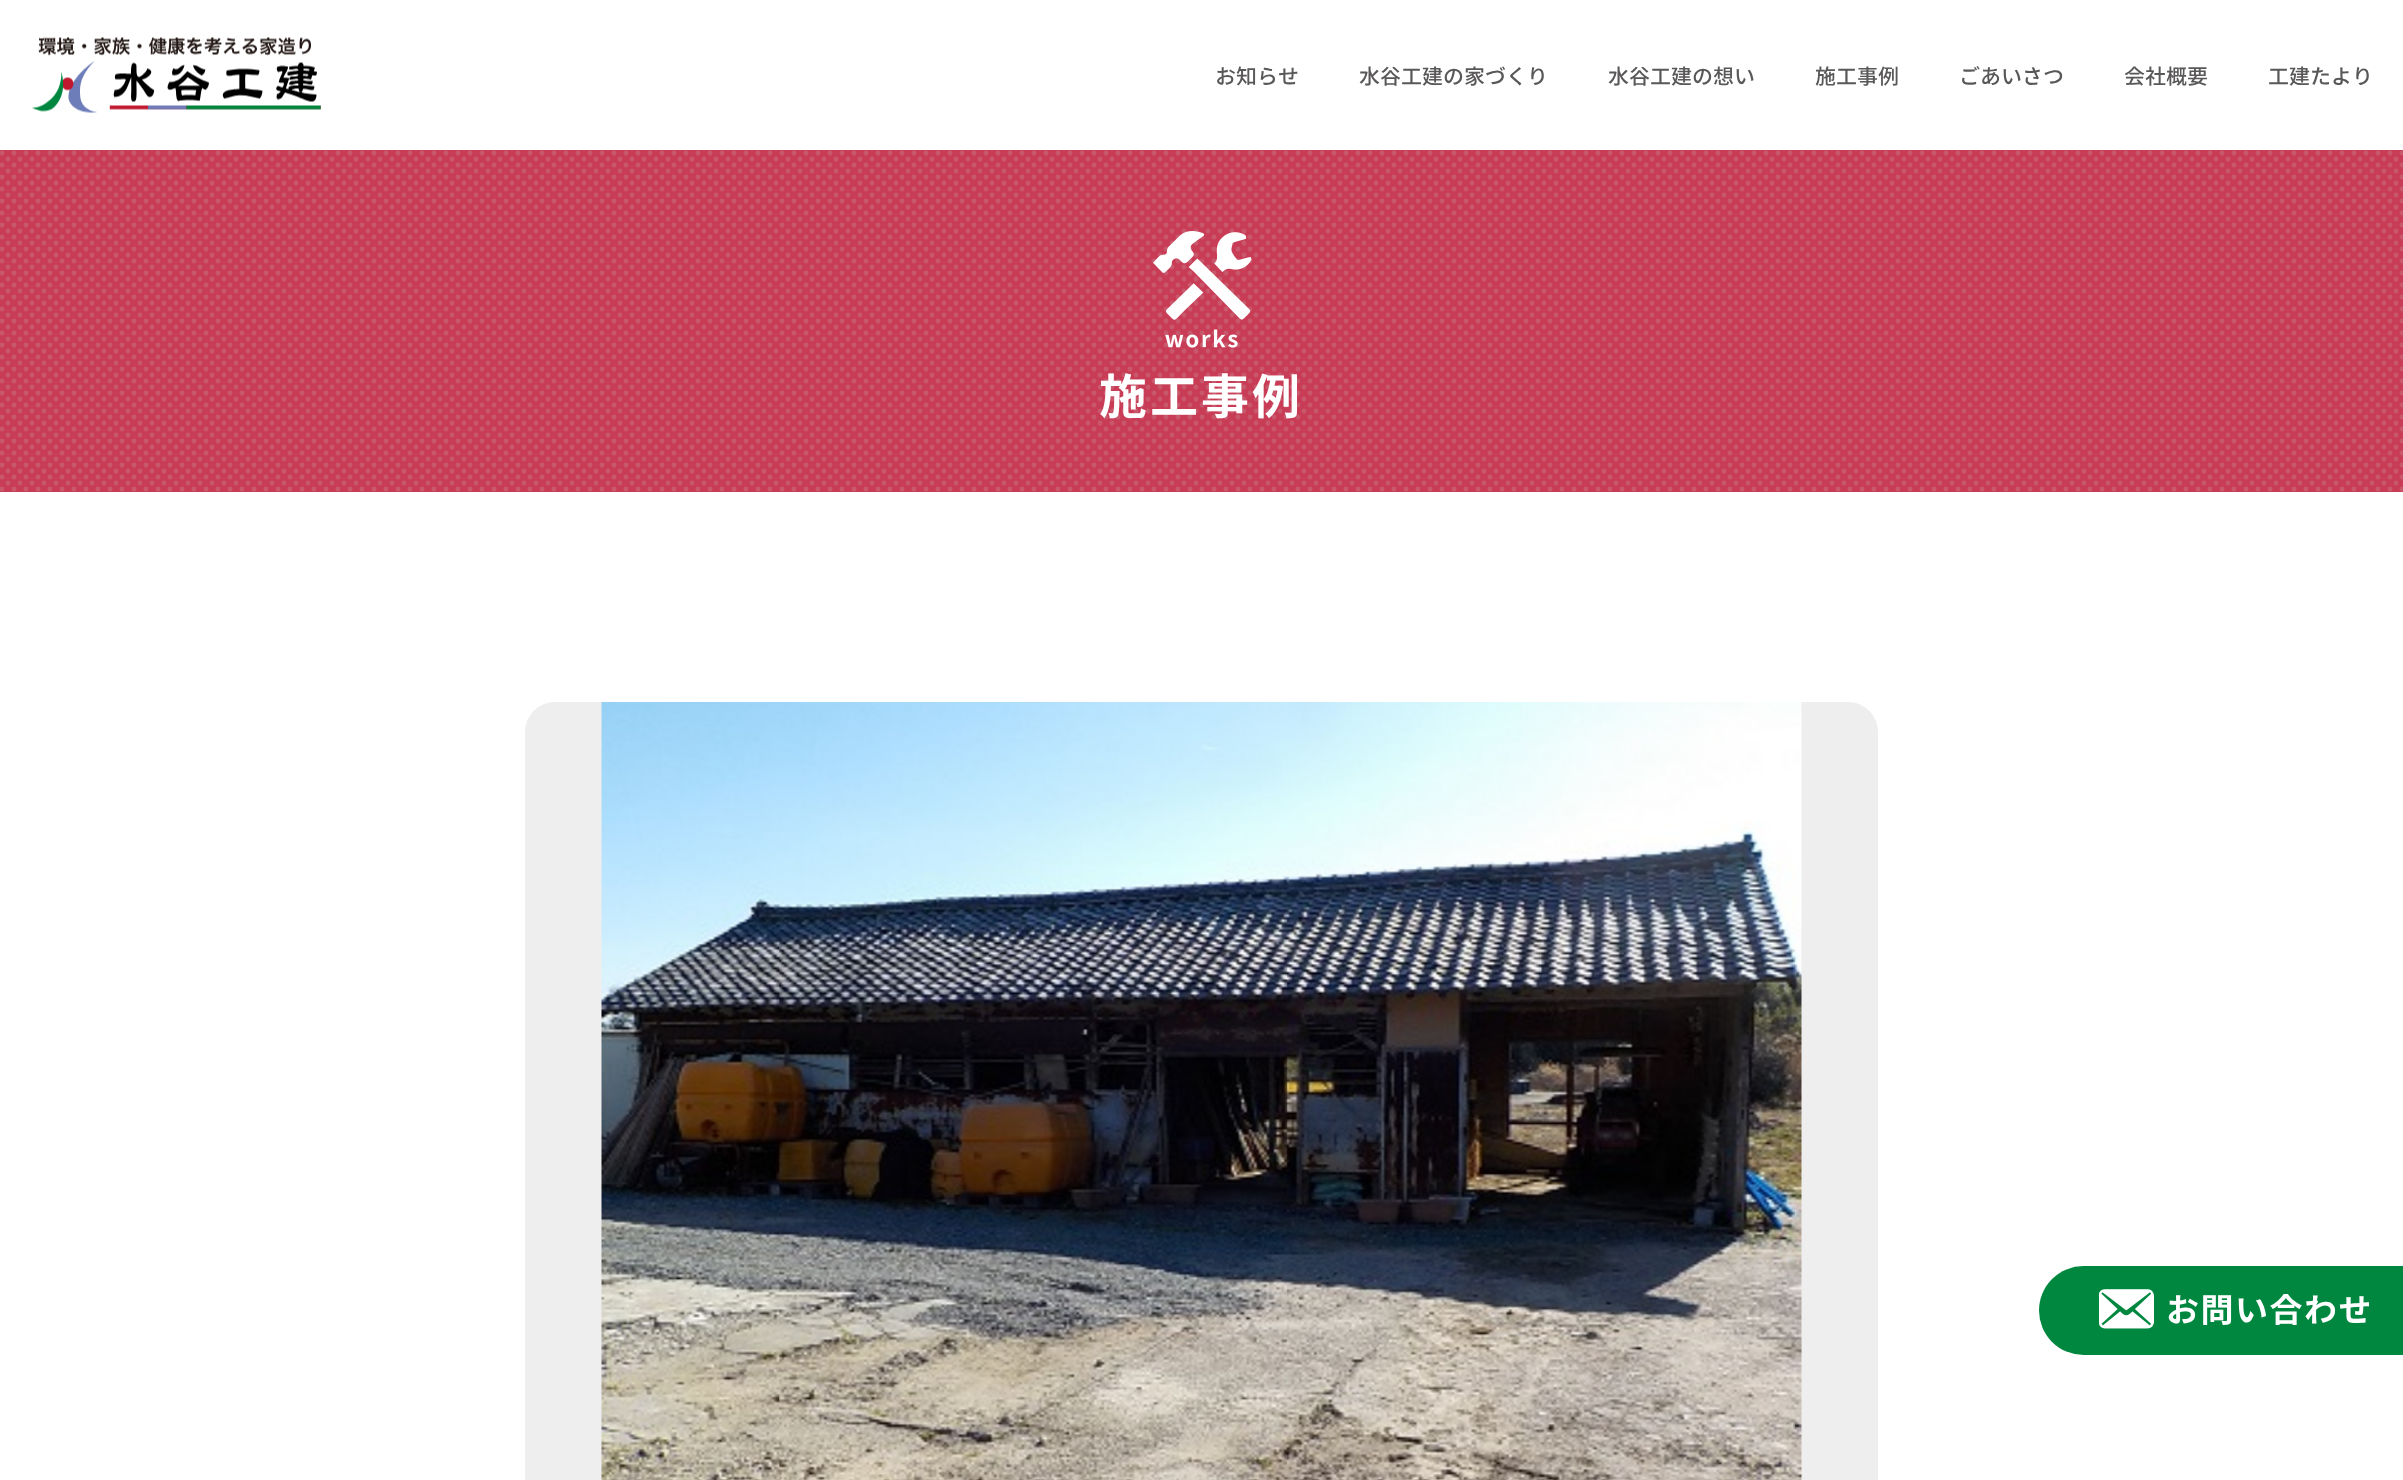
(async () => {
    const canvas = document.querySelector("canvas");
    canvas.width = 2403;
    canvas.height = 1480;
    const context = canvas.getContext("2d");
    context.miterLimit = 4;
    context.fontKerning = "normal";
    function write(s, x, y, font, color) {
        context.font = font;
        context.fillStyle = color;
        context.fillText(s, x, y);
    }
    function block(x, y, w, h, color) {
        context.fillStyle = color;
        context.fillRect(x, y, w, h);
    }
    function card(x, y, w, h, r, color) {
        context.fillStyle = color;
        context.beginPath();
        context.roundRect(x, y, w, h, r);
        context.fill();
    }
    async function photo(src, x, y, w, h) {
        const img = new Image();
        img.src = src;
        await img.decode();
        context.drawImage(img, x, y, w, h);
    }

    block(0, 0, 2403, 1480, "rgb(255, 255, 255)");
    await photo("media/1.png", 32, 37, 289, 76);
    write("お知らせ", 1215, 84, "500 21px Noto Sans CJK JP", "rgb(89, 87, 87)");
    write("水谷工建の家づくり", 1359, 84, "500 21px Noto Sans CJK JP", "rgb(89, 87, 87)");
    write("水谷工建の想い", 1608, 84, "500 21px Noto Sans CJK JP", "rgb(89, 87, 87)");
    write("施工事例", 1815, 84, "500 21px Noto Sans CJK JP", "rgb(89, 87, 87)");
    write("ごあいさつ", 1959, 84, "500 21px Noto Sans CJK JP", "rgb(89, 87, 87)");
    write("会社概要", 2124, 84, "500 21px Noto Sans CJK JP", "rgb(89, 87, 87)");
    write("工建たより", 2268, 84, "500 21px Noto Sans CJK JP", "rgb(89, 87, 87)");
    await photo("media/2.png", 0, 150, 2403, 342);
    await photo("media/3.png", 1153, 231, 99, 117);
    context.letterSpacing = "3px";
    write("施工事例", 1099, 414, "bold 48px Noto Sans CJK JP", "rgb(255, 255, 255)");
    card(525, 702, 1353, 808, 30, "rgb(238, 238, 238)");
    await photo("media/4.png", 601, 702, 1201, 778);
    context.fillStyle = "rgb(0, 135, 63)";
    context.beginPath();
    context.roundRect(2039, 1266, 364, 89, [44.5, 0, 0, 44.5]);
    context.fill();
    await photo("media/5.png", 2099, 1289, 55, 40);
    context.letterSpacing = "1.5px";
    write("お問い合わせ", 2166, 1322, "bold 33px Noto Sans CJK JP", "rgb(255, 255, 255)");
})();
